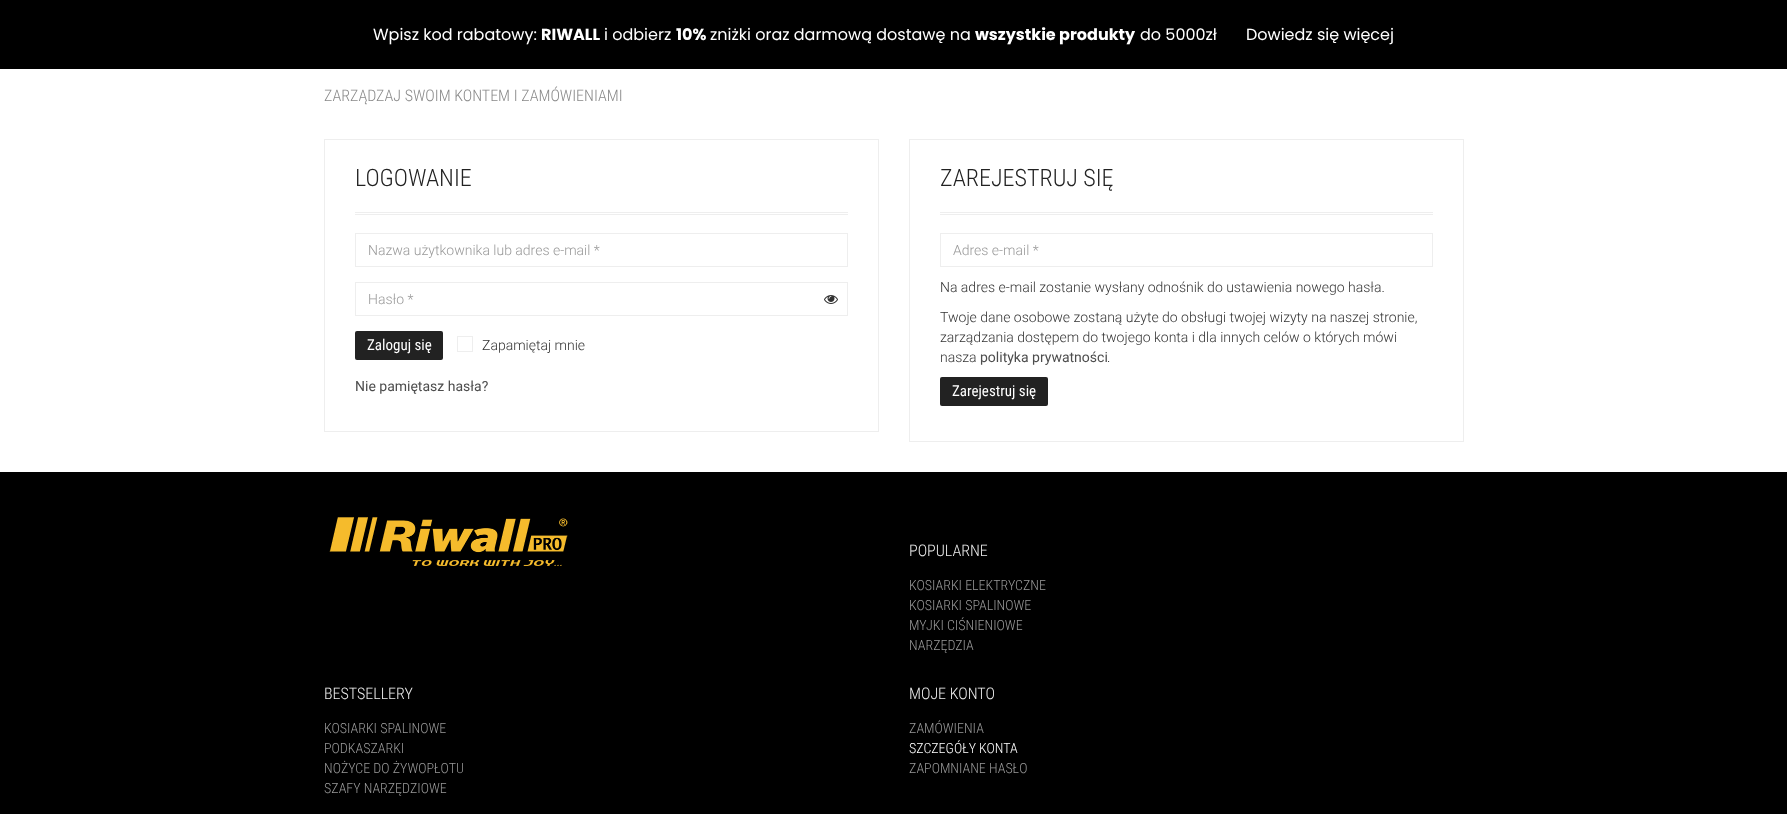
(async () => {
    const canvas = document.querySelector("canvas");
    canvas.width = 1787;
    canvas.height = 814;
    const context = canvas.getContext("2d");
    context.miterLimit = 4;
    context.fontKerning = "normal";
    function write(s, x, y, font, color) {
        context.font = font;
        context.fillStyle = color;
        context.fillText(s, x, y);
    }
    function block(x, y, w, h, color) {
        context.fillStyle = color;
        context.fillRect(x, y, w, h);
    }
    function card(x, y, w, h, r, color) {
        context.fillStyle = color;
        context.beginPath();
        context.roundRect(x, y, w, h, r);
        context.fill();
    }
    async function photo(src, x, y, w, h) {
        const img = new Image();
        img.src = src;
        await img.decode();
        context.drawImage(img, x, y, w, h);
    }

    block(0, 0, 1787, 814, "rgb(255, 255, 255)");
    block(0, 0, 1787, 69, "rgb(0, 0, 0)");
    write("Wpisz kod rabatowy:", 373, 40, "16px Poppins", "rgb(255, 255, 255)");
    write("RIWALL", 541, 40, "bold 16px Poppins", "rgb(255, 255, 255)");
    write("i odbierz", 604, 40, "16px Poppins", "rgb(255, 255, 255)");
    write("10%", 676, 40, "bold 16px Poppins", "rgb(255, 255, 255)");
    write("zniżki oraz darmową dostawę na", 710, 40, "16px Poppins", "rgb(255, 255, 255)");
    write("wszystkie produkty", 975, 40, "bold 16px Poppins", "rgb(255, 255, 255)");
    write("do 5000zł", 1140, 40, "16px Poppins", "rgb(255, 255, 255)");
    write("Dowiedz się więcej", 1246, 40, "16px Poppins", "rgb(255, 255, 255)");
    write("ZARZĄDZAJ SWOIM KONTEM I ZAMÓWIENIAMI", 324, 101, "300 16px Roboto Condensed", "rgb(136, 136, 136)");
    context.strokeStyle = "rgb(238, 238, 238)";
    context.strokeRect(324.5, 139.5, 554, 292);
    block(355, 214, 493, 1, "rgb(238, 238, 238)");
    block(355, 212, 493, 1, "rgb(238, 238, 238)");
    write("LOGOWANIE", 355, 186, "300 24px Roboto Condensed", "rgb(34, 34, 34)");
    context.strokeRect(355.5, 233.5, 492, 33);
    write("Nazwa użytkownika lub adres e-mail *", 368, 255, "300 14px Roboto", "rgb(153, 153, 153)");
    context.strokeRect(355.5, 282.5, 492, 33);
    write("Hasło *", 368, 304, "300 14px Roboto", "rgb(153, 153, 153)");
    await photo("media/1.png", 824, 295, 14, 9);
    card(355, 331, 88, 29, 2, "rgb(34, 34, 34)");
    write("Zaloguj się", 367, 350, "15px Roboto Condensed", "rgb(255, 255, 255)");
    context.strokeRect(457.5, 336.5, 15, 15);
    write("Zapamiętaj mnie", 482, 350, "300 14px Roboto", "rgb(51, 51, 51)");
    write("Nie pamiętasz hasła?", 355, 391, "14px Roboto", "rgb(77, 77, 77)");
    context.strokeRect(909.5, 139.5, 554, 302);
    block(940, 214, 493, 1, "rgb(238, 238, 238)");
    block(940, 212, 493, 1, "rgb(238, 238, 238)");
    write("ZAREJESTRUJ SIĘ", 940, 186, "300 24px Roboto Condensed", "rgb(34, 34, 34)");
    context.strokeRect(940.5, 233.5, 492, 33);
    write("Adres e-mail *", 953, 255, "300 14px Roboto", "rgb(153, 153, 153)");
    write("Na adres e-mail zostanie wysłany odnośnik do ustawienia nowego hasła.", 940, 292, "300 14px Roboto", "rgb(51, 51, 51)");
    write("Twoje dane osobowe zostaną użyte do obsługi twojej wizyty na naszej stronie,", 940, 322, "300 14px Roboto", "rgb(51, 51, 51)");
    write("zarządzania dostępem do twojego konta i dla innych celów o których mówi", 940, 342, "300 14px Roboto", "rgb(51, 51, 51)");
    write("nasza", 940, 362, "300 14px Roboto", "rgb(51, 51, 51)");
    write("polityka prywatności", 980, 362, "14px Roboto", "rgb(77, 77, 77)");
    write(".", 1107, 362, "300 14px Roboto", "rgb(51, 51, 51)");
    card(940, 377, 108, 29, 2, "rgb(34, 34, 34)");
    write("Zarejestruj się", 952, 396, "15px Roboto Condensed", "rgb(255, 255, 255)");
    block(0, 472, 1787, 342, "rgb(0, 0, 0)");
    await photo("media/2.png", 329, 517, 239, 49);
    write("POPULARNE", 909, 556, "300 16px Roboto Condensed", "rgb(238, 238, 238)");
    write("KOSIARKI ELEKTRYCZNE", 909, 590, "300 14px Roboto Condensed", "rgb(153, 153, 153)");
    write("KOSIARKI SPALINOWE", 909, 610, "300 14px Roboto Condensed", "rgb(153, 153, 153)");
    write("MYJKI CIŚNIENIOWE", 909, 630, "300 14px Roboto Condensed", "rgb(153, 153, 153)");
    write("NARZĘDZIA", 909, 650, "300 14px Roboto Condensed", "rgb(153, 153, 153)");
    write("BESTSELLERY", 324, 699, "300 16px Roboto Condensed", "rgb(238, 238, 238)");
    write("KOSIARKI SPALINOWE", 324, 733, "300 14px Roboto Condensed", "rgb(153, 153, 153)");
    write("PODKASZARKI", 324, 753, "300 14px Roboto Condensed", "rgb(153, 153, 153)");
    write("NOŻYCE DO ŻYWOPŁOTU", 324, 773, "300 14px Roboto Condensed", "rgb(153, 153, 153)");
    write("SZAFY NARZĘDZIOWE", 324, 793, "300 14px Roboto Condensed", "rgb(153, 153, 153)");
    write("MOJE KONTO", 909, 699, "300 16px Roboto Condensed", "rgb(238, 238, 238)");
    write("ZAMÓWIENIA", 909, 733, "300 14px Roboto Condensed", "rgb(153, 153, 153)");
    write("SZCZEGÓŁY KONTA", 909, 753, "300 14px Roboto Condensed", "rgb(255, 255, 255)");
    write("ZAPOMNIANE HASŁO", 909, 773, "300 14px Roboto Condensed", "rgb(153, 153, 153)");
})();
